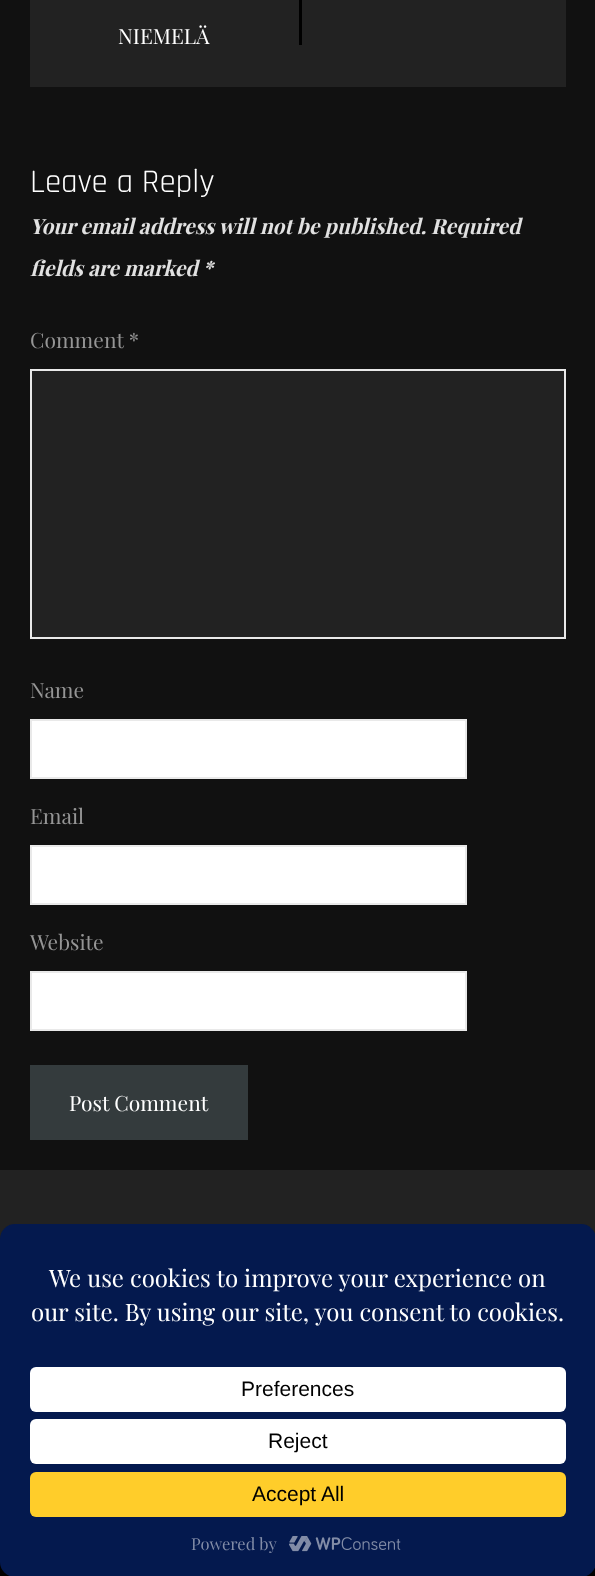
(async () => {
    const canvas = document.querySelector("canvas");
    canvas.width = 595;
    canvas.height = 1576;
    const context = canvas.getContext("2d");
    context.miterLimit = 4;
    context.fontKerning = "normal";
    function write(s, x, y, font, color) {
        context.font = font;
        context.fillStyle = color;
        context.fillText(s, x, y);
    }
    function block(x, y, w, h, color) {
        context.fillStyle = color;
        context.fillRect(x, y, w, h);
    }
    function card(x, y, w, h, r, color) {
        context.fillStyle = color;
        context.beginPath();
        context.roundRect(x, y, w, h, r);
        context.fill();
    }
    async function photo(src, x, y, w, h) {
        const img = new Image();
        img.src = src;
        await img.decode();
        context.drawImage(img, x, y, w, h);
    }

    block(0, 0, 595, 1576, "rgb(34, 34, 34)");
    block(0, 0, 595, 1170, "rgb(17, 17, 17)");
    block(30, 0, 536, 87, "rgb(34, 34, 34)");
    write("NIEMELÄ", 118, 44, "21px Playfair Display", "rgb(255, 255, 255)");
    block(299, 0, 3, 45, "rgb(0, 0, 0)");
    write("Leave a Reply", 30, 192, "33px Rajdhani", "rgb(255, 255, 255)");
    write("Your email address will not be published. Required", 30, 234, "italic bold 21px Playfair Display", "rgb(225, 225, 225)");
    write("fields are marked *", 30, 276, "italic bold 21px Playfair Display", "rgb(225, 225, 225)");
    write("Comment *", 30, 348, "21px Playfair Display", "rgb(149, 149, 149)");
    context.fillStyle = "rgb(34, 34, 34)";
    context.beginPath();
    context.rect(31, 370, 534, 268);
    context.fill();
    context.strokeStyle = "rgb(233, 233, 233)";
    context.lineWidth = 2;
    context.stroke();
    write("Name", 30, 698, "21px Playfair Display", "rgb(149, 149, 149)");
    context.fillStyle = "rgb(255, 255, 255)";
    context.beginPath();
    context.rect(31, 720, 435, 58);
    context.fill();
    context.stroke();
    write("Email", 30, 824, "21px Playfair Display", "rgb(149, 149, 149)");
    context.fillStyle = "rgb(255, 255, 255)";
    context.beginPath();
    context.rect(31, 846, 435, 58);
    context.fill();
    context.stroke();
    write("Website", 30, 950, "21px Playfair Display", "rgb(149, 149, 149)");
    context.fillStyle = "rgb(255, 255, 255)";
    context.beginPath();
    context.rect(31, 972, 435, 58);
    context.fill();
    context.stroke();
    block(30, 1065, 218, 75, "rgb(52, 59, 61)");
    write("Post Comment", 69, 1111, "21px Playfair Display", "rgb(255, 255, 255)");
    block(0, 1562, 595, 14, "rgb(0, 0, 0)");
    card(0, 1224, 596, 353, 15, "rgb(4, 25, 78)");
    write("We use cookies to improve your experience on", 49, 1287, "24px Playfair Display", "rgb(255, 255, 255)");
    write("our site. By using our site, you consent to cookies.", 31, 1321, "24px Playfair Display", "rgb(255, 255, 255)");
    card(30, 1367, 536, 45, 6, "rgb(255, 255, 255)");
    write("Preferences", 241, 1396, "21px Liberation Sans", "rgb(0, 0, 0)");
    card(30, 1419, 536, 45, 6, "rgb(255, 255, 255)");
    write("Reject", 268, 1448, "21px Liberation Sans", "rgb(0, 0, 0)");
    card(30, 1472, 536, 45, 6, "rgb(255, 205, 42)");
    write("Accept All", 252, 1501, "21px Liberation Sans", "rgb(0, 0, 0)");
    write("Powered by", 191, 1550, "16.5px Playfair Display", "rgb(130, 140, 167)");
    await photo("media/1.png", 289, 1536, 112, 16);
})();
